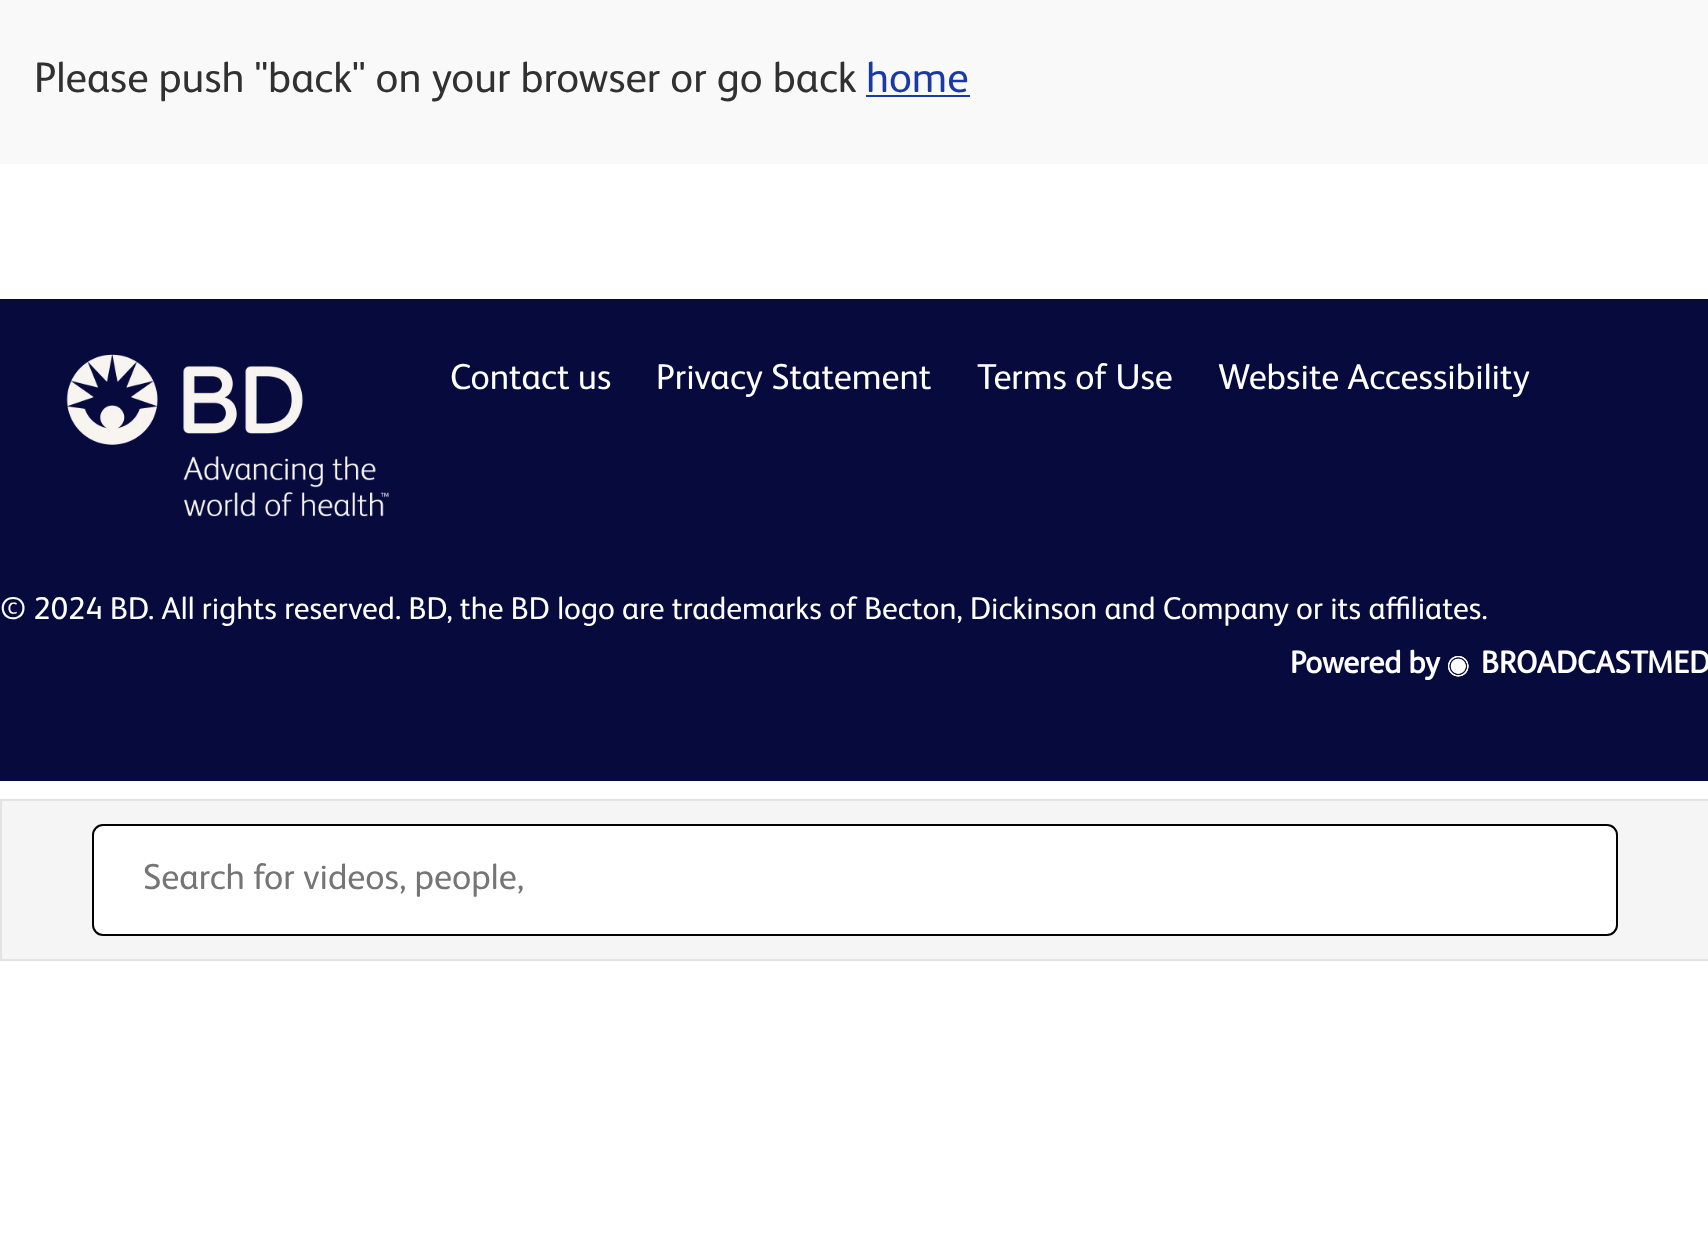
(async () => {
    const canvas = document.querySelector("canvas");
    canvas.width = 1708;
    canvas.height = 1238;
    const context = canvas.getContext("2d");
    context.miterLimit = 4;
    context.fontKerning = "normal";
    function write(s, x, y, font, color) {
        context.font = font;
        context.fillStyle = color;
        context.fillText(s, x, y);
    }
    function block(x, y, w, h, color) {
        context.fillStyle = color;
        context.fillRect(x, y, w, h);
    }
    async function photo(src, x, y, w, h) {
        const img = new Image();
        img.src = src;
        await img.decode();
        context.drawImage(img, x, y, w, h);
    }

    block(0, 0, 1708, 1238, "rgb(255, 255, 255)");
    block(0, 0, 1708, 164, "rgb(248, 249, 248)");
    write("Please push \"back\" on your browser or go back", 34, 92, "42.75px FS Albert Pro", "rgb(49, 49, 49)");
    write("home", 866, 92, "42.75px FS Albert Pro", "rgb(25, 57, 167)");
    block(866, 95, 104, 2, "rgb(25, 57, 167)");
    block(0, 299, 1708, 482, "rgb(6, 10, 61)");
    await photo("media/1.png", 66, 354, 323, 163);
    write("Contact us", 450, 389, "36px FS Albert Pro", "rgb(255, 255, 255)");
    write("Privacy Statement", 656, 389, "36px FS Albert Pro", "rgb(255, 255, 255)");
    write("Terms of Use", 977, 389, "36px FS Albert Pro", "rgb(255, 255, 255)");
    write("Website Accessibility", 1218, 389, "36px FS Albert Pro", "rgb(255, 255, 255)");
    write("© 2024 BD. All rights reserved. BD, the BD logo are trademarks of Becton, Dickinson and Company or its affiliates.", 0, 619, "31.5px FS Albert Pro", "rgb(255, 255, 255)");
    write("Powered by", 1290, 673, "bold 31.5px FS Albert Pro", "rgb(255, 255, 255)");
    await photo("media/2.png", 1448, 656, 21, 21);
    write("BROADCASTMED", 1481, 673, "bold 31.5px FS Albert Pro", "rgb(255, 255, 255)");
    context.fillStyle = "rgb(245, 245, 245)";
    context.beginPath();
    context.rect(1, 800, 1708, 160);
    context.fill();
    context.strokeStyle = "rgb(224, 226, 228)";
    context.lineWidth = 2;
    context.stroke();
    context.fillStyle = "rgb(255, 255, 255)";
    context.beginPath();
    context.roundRect(93, 825, 1524, 110, 10);
    context.fill();
    context.strokeStyle = "rgb(0, 0, 0)";
    context.stroke();
    write("Search for videos, people,", 143, 889, "36px FS Albert Pro", "rgb(117, 117, 117)");
})();
